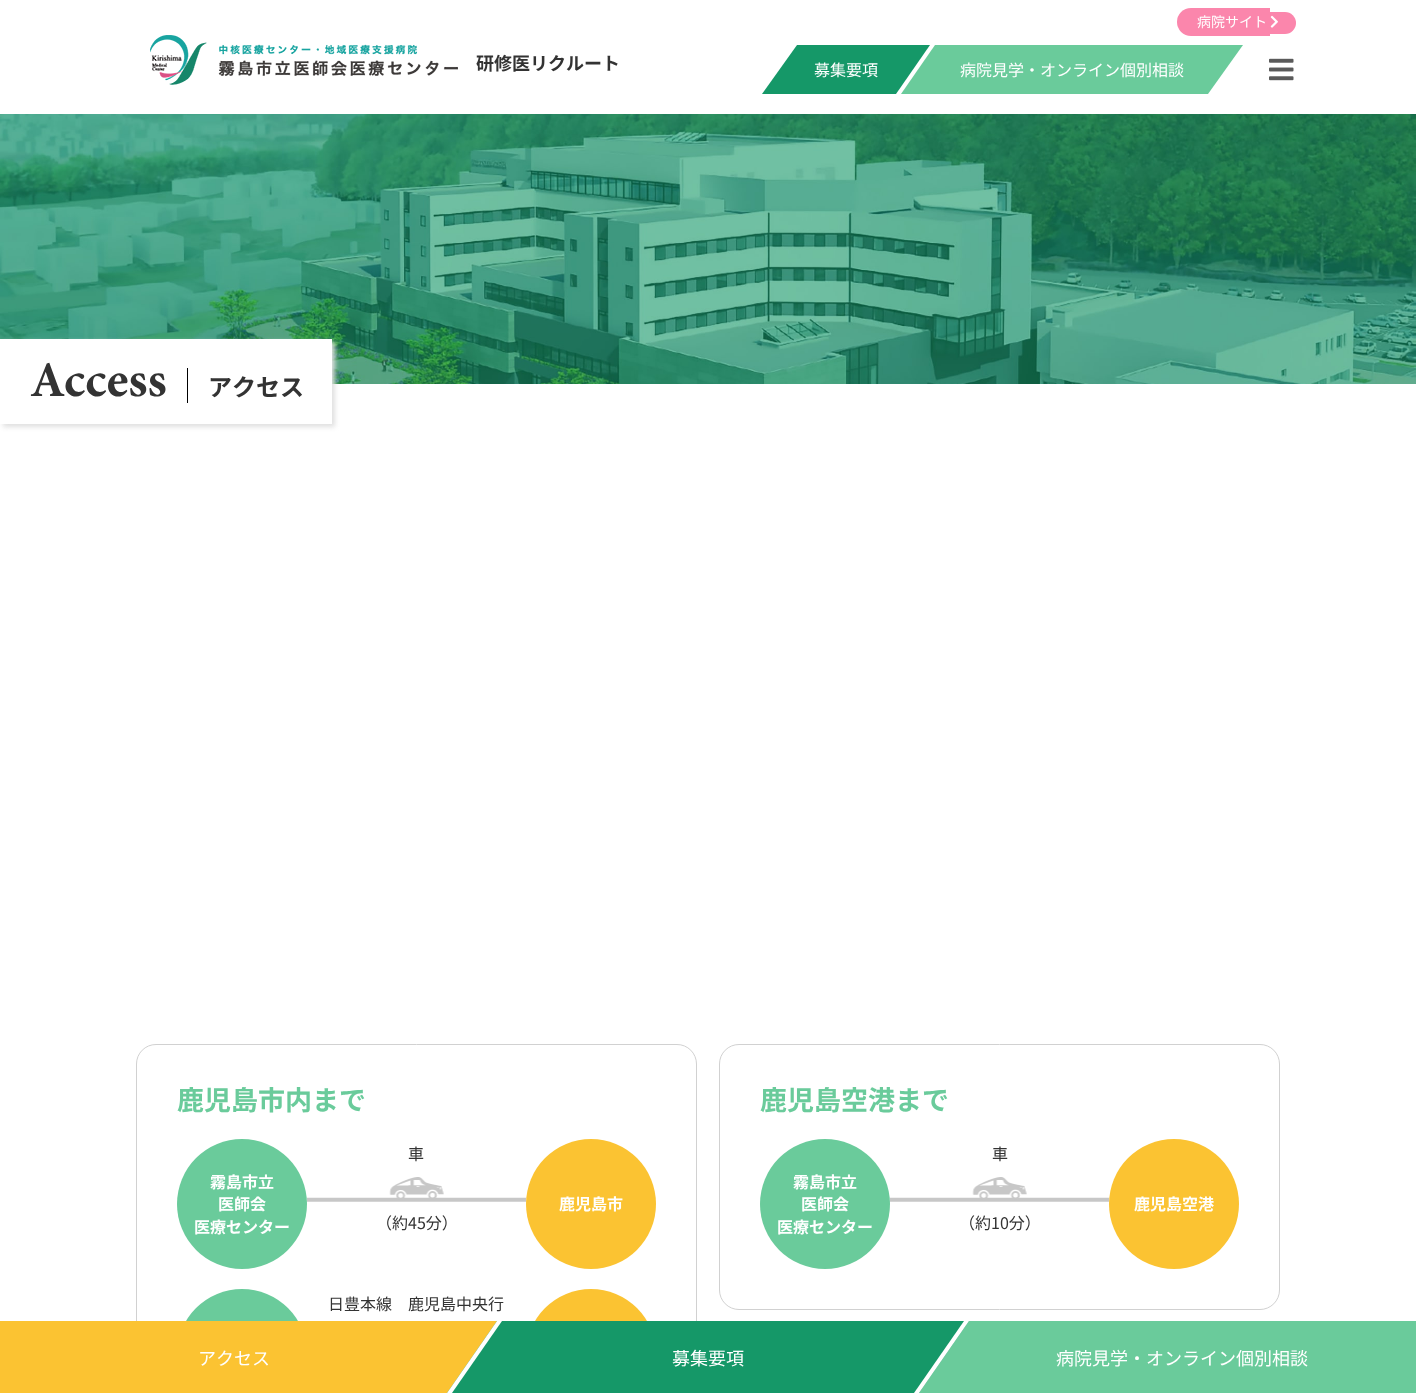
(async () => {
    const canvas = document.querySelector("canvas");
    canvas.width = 1416;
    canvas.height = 1393;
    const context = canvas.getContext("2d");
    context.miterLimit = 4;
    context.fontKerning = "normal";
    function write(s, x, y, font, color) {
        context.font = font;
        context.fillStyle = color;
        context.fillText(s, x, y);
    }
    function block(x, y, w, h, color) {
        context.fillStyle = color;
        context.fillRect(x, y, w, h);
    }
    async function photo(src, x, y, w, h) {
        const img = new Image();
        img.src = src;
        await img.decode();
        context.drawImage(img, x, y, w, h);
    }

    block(0, 0, 1416, 1393, "rgb(255, 255, 255)");
    context.fillStyle = "rgb(251, 134, 172)";
    context.beginPath();
    context.roundRect(1177, 8, 93, 28, [14, 0, 0, 14]);
    context.fill();
    context.beginPath();
    context.roundRect(1270, 12, 26, 22, [0, 11, 11, 0]);
    context.fill();
    write("病院サイト", 1197, 27, "14px Noto Sans JP", "rgb(255, 255, 255)");
    await photo("media/1.png", 1270, 15, 8, 13);
    await photo("media/2.png", 150, 35, 308, 50);
    write("研修医リクルート", 476, 70, "bold 18px Noto Sans JP", "rgb(51, 51, 51)");
    context.fillStyle = "rgb(21, 152, 104)";
    context.beginPath();
    context.moveTo(797, 45);
    context.lineTo(930, 45);
    context.lineTo(896, 94);
    context.lineTo(762, 94);
    context.closePath();
    context.fill();
    write("募集要項", 814, 76, "16px Noto Sans JP", "rgb(255, 255, 255)");
    context.fillStyle = "rgb(106, 203, 155)";
    context.beginPath();
    context.moveTo(935, 45);
    context.lineTo(1243, 45);
    context.lineTo(1208, 94);
    context.lineTo(901, 94);
    context.closePath();
    context.fill();
    write("病院見学・オンライン個別相談", 960, 76, "16px Noto Sans JP", "rgb(255, 255, 255)");
    await photo("media/3.png", 1269, 58, 25, 23);
    await photo("media/4.png", 0, 114, 1416, 270);
    context.fillStyle = "rgb(224, 224, 224)";
    context.filter = "blur(2.5px)";
    context.beginPath();
    context.rect(3, 342, 332, 85);
    context.fill();
    context.filter = "none";
    block(0, 339, 332, 85, "rgb(255, 255, 255)");
    write("Access", 30, 396, "bold 50px Minion", "rgb(51, 51, 51)");
    write("アクセス", 208, 396, "bold 24px Noto Sans JP", "rgb(51, 51, 51)");
    block(187, 368, 1, 35, "rgb(0, 0, 0)");
    context.beginPath();
    context.roundRect(136.5, 1044.5, 560, 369, 19.5);
    context.strokeStyle = "rgb(209, 209, 209)";
    context.stroke();
    write("鹿児島市内まで", 177, 1110, "bold 27px Noto Sans JP", "rgb(106, 203, 155)");
    context.beginPath();
    context.arc(242, 1204, 65, 0, Math.PI * 2);
    context.fill();
    write("霧島市立", 210, 1188, "bold 16px Noto Sans JP", "rgb(255, 255, 255)");
    write("医師会", 218, 1210, "bold 16px Noto Sans JP", "rgb(255, 255, 255)");
    write("医療センター", 194, 1233, "bold 16px Noto Sans JP", "rgb(255, 255, 255)");
    await photo("media/5.png", 307, 1177, 219, 25);
    write("車", 408, 1160, "16px Noto Sans JP", "rgb(51, 51, 51)");
    write("（約45分）", 376, 1229, "16px Noto Sans JP", "rgb(51, 51, 51)");
    context.fillStyle = "rgb(251, 195, 50)";
    context.beginPath();
    context.arc(591, 1204, 65, 0, Math.PI * 2);
    context.fill();
    write("鹿児島市", 559, 1210, "bold 16px Noto Sans JP", "rgb(255, 255, 255)");
    context.fillStyle = "rgb(106, 203, 155)";
    context.beginPath();
    context.arc(242, 1354, 65, 0, Math.PI * 2);
    context.fill();
    write("日豊本線　鹿児島中央行", 328, 1310, "16px Noto Sans JP", "rgb(51, 51, 51)");
    context.fillStyle = "rgb(251, 195, 50)";
    context.beginPath();
    context.arc(591, 1354, 65, 0, Math.PI * 2);
    context.fill();
    context.beginPath();
    context.roundRect(719.5, 1044.5, 560, 265, 19.5);
    context.stroke();
    write("鹿児島空港まで", 760, 1110, "bold 27px Noto Sans JP", "rgb(106, 203, 155)");
    context.beginPath();
    context.arc(825, 1204, 65, 0, Math.PI * 2);
    context.fill();
    write("霧島市立", 793, 1188, "bold 16px Noto Sans JP", "rgb(255, 255, 255)");
    write("医師会", 801, 1210, "bold 16px Noto Sans JP", "rgb(255, 255, 255)");
    write("医療センター", 777, 1233, "bold 16px Noto Sans JP", "rgb(255, 255, 255)");
    await photo("media/6.png", 890, 1177, 219, 25);
    write("車", 992, 1160, "16px Noto Sans JP", "rgb(51, 51, 51)");
    write("（約10分）", 959, 1229, "16px Noto Sans JP", "rgb(51, 51, 51)");
    context.fillStyle = "rgb(251, 195, 50)";
    context.beginPath();
    context.arc(1174, 1204, 65, 0, Math.PI * 2);
    context.fill();
    write("鹿児島空港", 1134, 1210, "bold 16px Noto Sans JP", "rgb(255, 255, 255)");
    block(0, 1321, 497, 72, "rgb(251, 195, 50)");
    write("アクセス", 198, 1365, "18px Noto Sans JP", "rgb(255, 255, 255)");
    block(919, 1321, 497, 72, "rgb(106, 203, 155)");
    context.fillStyle = "rgb(21, 152, 104)";
    context.beginPath();
    context.moveTo(497, 1321);
    context.lineTo(969, 1321);
    context.lineTo(919, 1393);
    context.lineTo(447, 1393);
    context.closePath();
    context.fill();
    context.fillStyle = "rgb(255, 255, 255)";
    context.beginPath();
    context.moveTo(964, 1321);
    context.lineTo(969, 1321);
    context.lineTo(919, 1393);
    context.lineTo(914, 1393);
    context.closePath();
    context.fill();
    context.beginPath();
    context.moveTo(497, 1321);
    context.lineTo(502, 1321);
    context.lineTo(452, 1393);
    context.lineTo(447, 1393);
    context.closePath();
    context.fill();
    write("募集要項", 672, 1365, "18px Noto Sans JP", "rgb(255, 255, 255)");
    write("病院見学・オンライン個別相談", 1056, 1365, "18px Noto Sans JP", "rgb(255, 255, 255)");
})();
